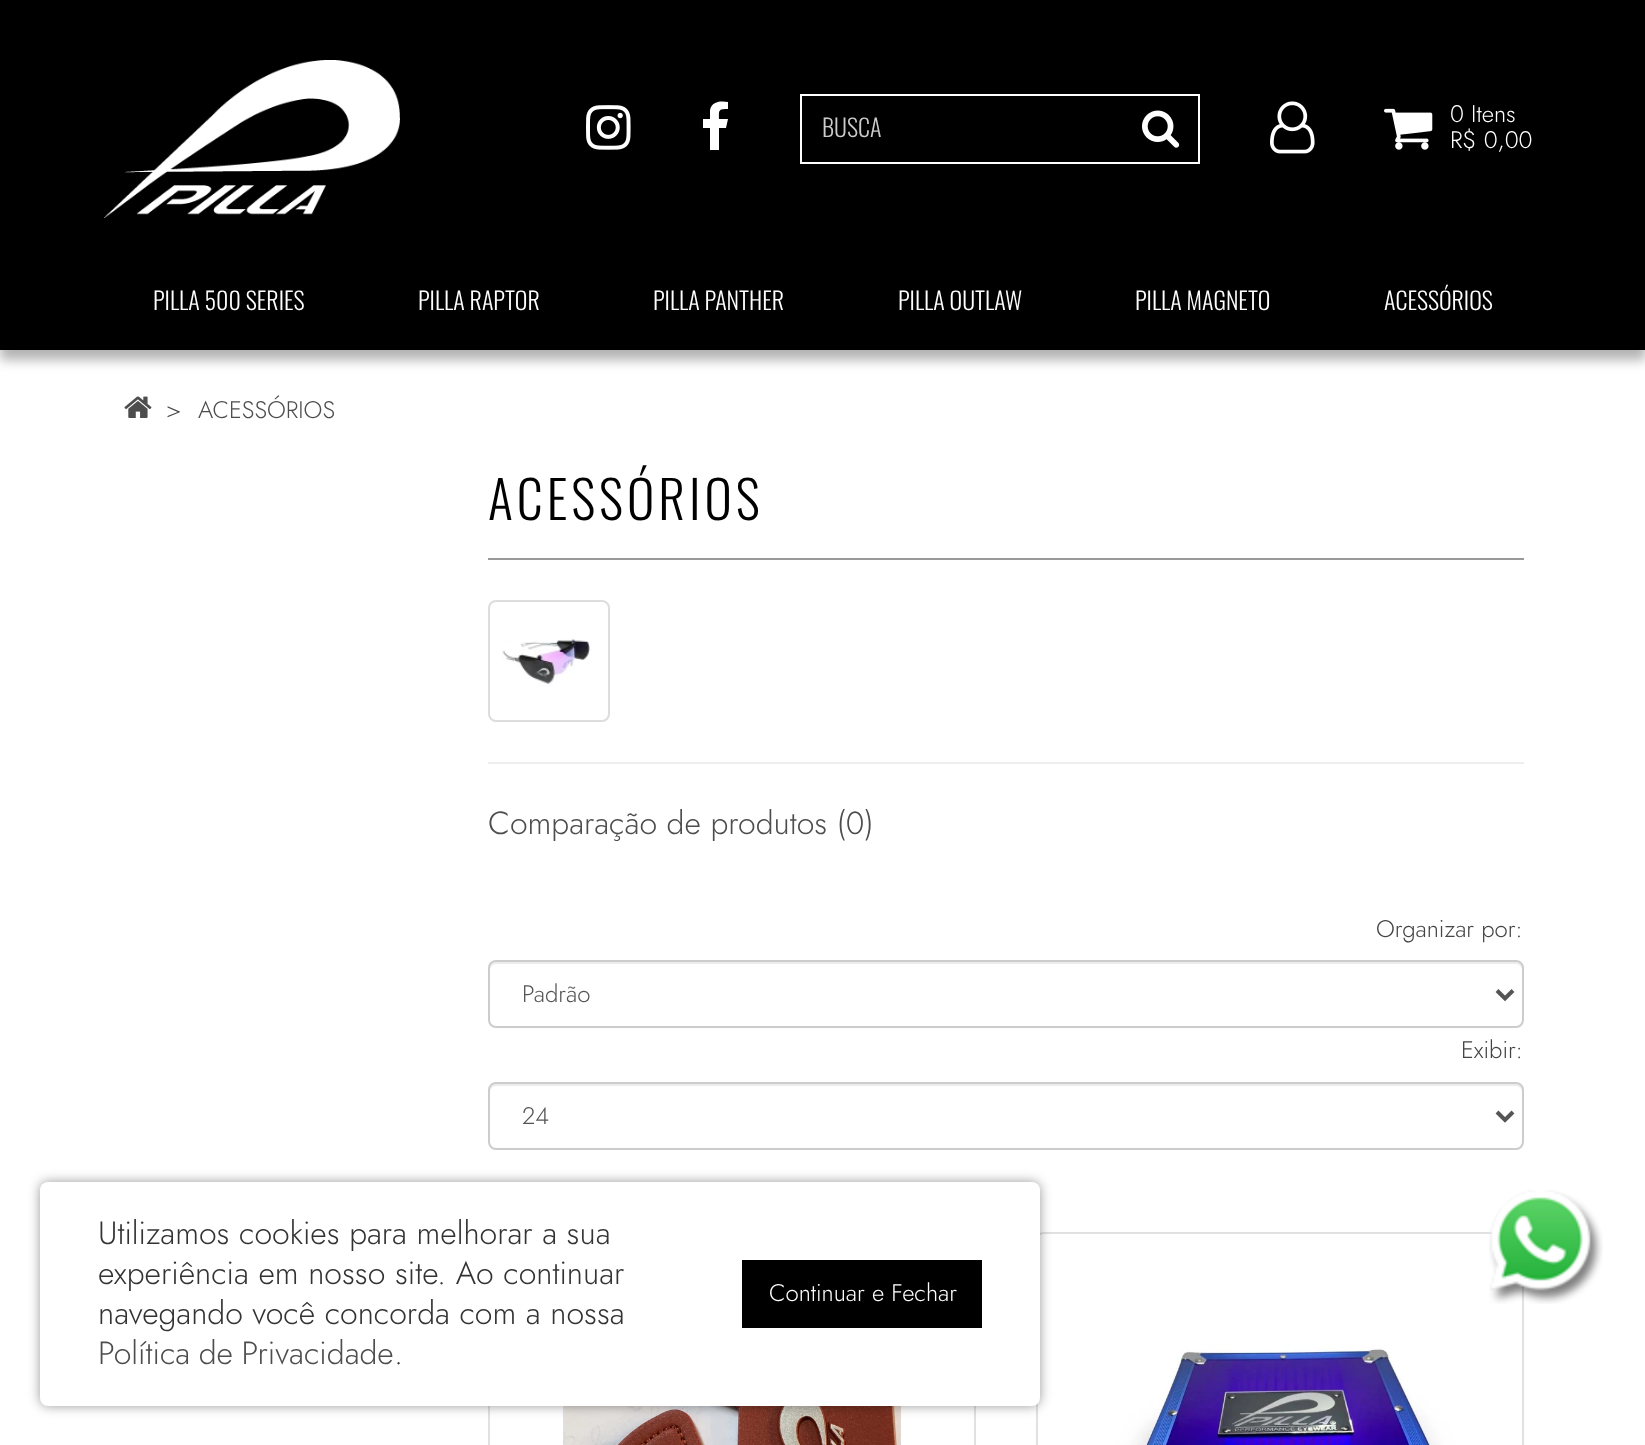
(async () => {
    const canvas = document.querySelector("canvas");
    canvas.width = 1645;
    canvas.height = 1445;
    const context = canvas.getContext("2d");
    context.miterLimit = 4;
    context.fontKerning = "normal";
    function write(s, x, y, font, color) {
        context.font = font;
        context.fillStyle = color;
        context.fillText(s, x, y);
    }
    function block(x, y, w, h, color) {
        context.fillStyle = color;
        context.fillRect(x, y, w, h);
    }
    function card(x, y, w, h, r, color) {
        context.fillStyle = color;
        context.beginPath();
        context.roundRect(x, y, w, h, r);
        context.fill();
    }
    async function photo(src, x, y, w, h) {
        const img = new Image();
        img.src = src;
        await img.decode();
        context.drawImage(img, x, y, w, h);
    }

    block(0, 0, 1645, 1445, "rgb(255, 255, 255)");
    context.fillStyle = "rgba(0, 0, 0, 0.3)";
    context.filter = "blur(6px)";
    context.beginPath();
    context.rect(0, 268, 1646, 92);
    context.fill();
    context.filter = "none";
    block(0, 0, 1645, 350, "rgb(0, 0, 0)");
    await photo("media/1.png", 104, 60, 296, 158);
    await photo("media/2.png", 586, 105, 45, 45);
    context.fillStyle = "rgb(255, 255, 255)";
    context.beginPath();
    context.moveTo(728, 102);
    context.lineTo(728, 109);
    context.bezierCurveTo(718, 109, 719, 110, 719, 119);
    context.lineTo(728, 119);
    context.lineTo(726, 128);
    context.lineTo(719, 128);
    context.lineTo(719, 150);
    context.lineTo(710, 150);
    context.lineTo(710, 128);
    context.lineTo(703, 128);
    context.lineTo(703, 119);
    context.lineTo(710, 119);
    context.lineTo(710, 110);
    context.bezierCurveTo(712, 101, 721, 101, 728, 102);
    context.closePath();
    context.fill();
    block(800, 94, 400, 2, "rgb(255, 255, 255)");
    block(800, 162, 322, 2, "rgb(255, 255, 255)");
    block(800, 94, 2, 70, "rgb(255, 255, 255)");
    write("BUSCA", 822, 137, "300 24px Oswald", "rgb(204, 204, 204)");
    block(1198, 94, 2, 70, "rgb(255, 255, 255)");
    block(1122, 162, 78, 2, "rgb(255, 255, 255)");
    await photo("media/3.png", 1142, 110, 38, 38);
    await photo("media/4.png", 1270, 101, 45, 53);
    await photo("media/5.png", 1384, 108, 49, 42);
    write("0 Itens", 1450, 122, "300 24px Jost", "rgb(255, 255, 255)");
    write("R$ 0,00", 1450, 148, "300 24px Jost", "rgb(255, 255, 255)");
    write("PILLA 500 SERIES", 153, 310, "300 24px Oswald", "rgb(255, 255, 255)");
    write("PILLA RAPTOR", 418, 310, "300 24px Oswald", "rgb(255, 255, 255)");
    write("PILLA PANTHER", 653, 310, "300 24px Oswald", "rgb(255, 255, 255)");
    write("PILLA OUTLAW", 898, 310, "300 24px Oswald", "rgb(255, 255, 255)");
    write("PILLA MAGNETO", 1135, 310, "300 24px Oswald", "rgb(255, 255, 255)");
    write("ACESSÓRIOS", 1384, 310, "300 24px Oswald", "rgb(255, 255, 255)");
    await photo("media/6.png", 124, 396, 28, 22);
    write(">", 166, 418, "300 24px Jost", "rgb(68, 68, 68)");
    write("ACESSÓRIOS", 198, 418, "300 24px Jost", "rgb(77, 77, 77)");
    block(488, 558, 1036, 2, "rgb(153, 153, 153)");
    context.letterSpacing = "4px";
    write("ACESSÓRIOS", 488, 520, "300 52px Oswald", "rgb(0, 0, 0)");
    context.beginPath();
    context.roundRect(489, 601, 120, 120, 7);
    context.strokeStyle = "rgb(221, 221, 221)";
    context.lineWidth = 2;
    context.stroke();
    await photo("media/7.png", 502, 639, 90, 48);
    block(488, 762, 1036, 2, "rgb(238, 238, 238)");
    context.letterSpacing = "0px";
    write("Comparação de produtos (0)", 488, 834, "300 32px Jost", "rgb(77, 77, 77)");
    write("Organizar por:", 1376, 937, "300 24px Jost", "rgb(68, 68, 68)");
    context.fillStyle = "rgb(236, 236, 236)";
    context.beginPath();
    context.moveTo(496, 964);
    context.lineTo(1516, 964);
    context.bezierCurveTo(1519, 964, 1522, 967, 1522, 970);
    context.lineTo(1522, 968);
    context.bezierCurveTo(1522, 965, 1519, 962, 1516, 962);
    context.lineTo(496, 962);
    context.bezierCurveTo(493, 962, 490, 965, 490, 968);
    context.lineTo(490, 970);
    context.bezierCurveTo(490, 967, 493, 964, 496, 964);
    context.closePath();
    context.fill();
    context.beginPath();
    context.roundRect(489, 961, 1034, 66, 7);
    context.strokeStyle = "rgb(204, 204, 204)";
    context.stroke();
    context.beginPath();
    context.moveTo(1497, 990.5);
    context.lineTo(1505, 998.5);
    context.lineTo(1513, 990.5);
    context.strokeStyle = "rgb(85, 85, 85)";
    context.lineWidth = 4;
    context.stroke();
    write("Padrão", 522, 1002, "300 24px Jost", "rgb(85, 85, 85)");
    write("Exibir:", 1461, 1058, "300 24px Jost", "rgb(68, 68, 68)");
    context.fillStyle = "rgb(236, 236, 236)";
    context.beginPath();
    context.moveTo(496, 1086);
    context.lineTo(1516, 1086);
    context.bezierCurveTo(1519, 1086, 1522, 1089, 1522, 1092);
    context.lineTo(1522, 1090);
    context.bezierCurveTo(1522, 1087, 1519, 1084, 1516, 1084);
    context.lineTo(496, 1084);
    context.bezierCurveTo(493, 1084, 490, 1087, 490, 1090);
    context.lineTo(490, 1092);
    context.bezierCurveTo(490, 1089, 493, 1086, 496, 1086);
    context.closePath();
    context.fill();
    context.beginPath();
    context.roundRect(489, 1083, 1034, 66, 7);
    context.strokeStyle = "rgb(204, 204, 204)";
    context.lineWidth = 2;
    context.stroke();
    context.beginPath();
    context.moveTo(1497, 1112);
    context.lineTo(1505, 1120);
    context.lineTo(1513, 1112);
    context.strokeStyle = "rgb(85, 85, 85)";
    context.lineWidth = 4;
    context.stroke();
    write("24", 522, 1124, "300 24px Jost", "rgb(85, 85, 85)");
    context.strokeStyle = "rgb(225, 225, 225)";
    context.lineWidth = 2;
    context.strokeRect(489, 1233, 486, 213);
    await photo("media/8.png", 490, 1406, 484, 39);
    context.beginPath();
    context.roundRect(1037, 1233, 486, 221, 7);
    context.stroke();
    await photo("media/9.png", 1038, 1234, 484, 211);
    context.fillStyle = "rgba(0, 0, 0, 0.4)";
    context.filter = "blur(6px)";
    context.beginPath();
    context.roundRect(40, 1182, 1000, 224, 8);
    context.fill();
    context.filter = "none";
    card(40, 1182, 1000, 224, 8, "rgb(255, 255, 255)");
    write("Utilizamos cookies para melhorar a sua", 98, 1244, "300 32px Jost", "rgb(51, 51, 51)");
    write("experiência em nosso site. Ao continuar", 98, 1284, "300 32px Jost", "rgb(51, 51, 51)");
    write("navegando você concorda com a nossa", 98, 1324, "300 32px Jost", "rgb(51, 51, 51)");
    context.wordSpacing = "-1px";
    write("Política de Privacidade", 98, 1364, "300 32px Jost", "rgb(77, 77, 77)");
    context.wordSpacing = "0px";
    write(".", 394, 1364, "300 32px Jost", "rgb(51, 51, 51)");
    block(742, 1260, 240, 68, "rgb(0, 0, 0)");
    write("Continuar e Fechar", 769, 1301, "300 24px Jost", "rgb(255, 255, 255)");
    await photo("media/10.png", 1489, 1190, 114, 114);
})();
